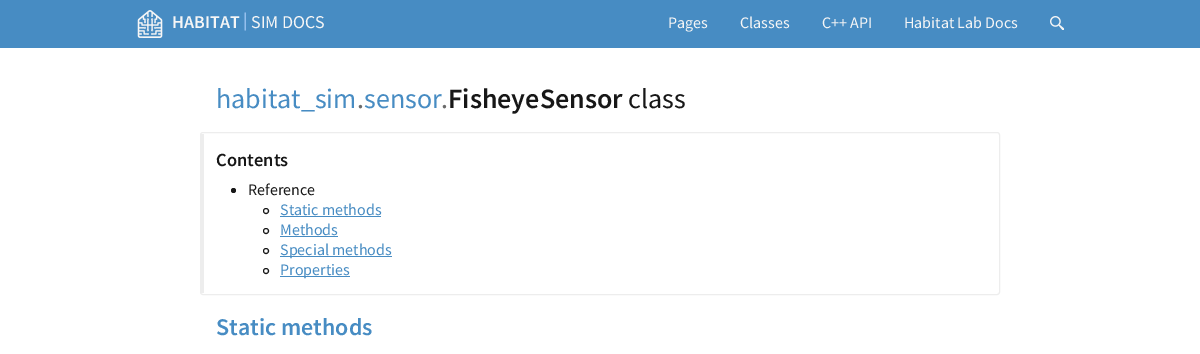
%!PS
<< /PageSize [1200 354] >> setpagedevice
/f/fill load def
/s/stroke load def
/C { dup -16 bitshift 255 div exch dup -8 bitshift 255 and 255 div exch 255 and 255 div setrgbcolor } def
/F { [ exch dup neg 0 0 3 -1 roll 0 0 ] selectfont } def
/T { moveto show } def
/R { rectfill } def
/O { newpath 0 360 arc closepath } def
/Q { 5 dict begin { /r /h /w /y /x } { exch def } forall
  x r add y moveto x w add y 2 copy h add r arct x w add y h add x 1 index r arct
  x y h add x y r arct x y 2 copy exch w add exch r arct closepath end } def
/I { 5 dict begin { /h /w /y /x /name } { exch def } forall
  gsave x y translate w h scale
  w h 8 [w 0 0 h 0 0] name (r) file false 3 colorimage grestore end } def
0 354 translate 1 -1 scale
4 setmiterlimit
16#FFFFFF C
0 0 1200 354 R
16#478CC3 C
0 0 1200 48 R
(1.rgb) 137 10 26 28 I
/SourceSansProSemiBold-SemiBold 18 F
16#F6F6F6 C
(HABITAT) 172 28 T
16#94BFED C
(|) 243 26 T
/SourceSansPro-Regular 18 F
16#F6F6F6 C
(SIM DOCS) 251 28 T
/SourceSansPro-Regular 16 F
(Pages) 668 28 T
(Classes) 740 28 T
(C++ API) 822 28 T
(Habitat Lab Docs) 904 28 T
(2.rgb) 1050 16 14 14 I
/SourceSansPro-Regular 28 F
16#478CC3 C
(habitat_sim) 216 108 T
16#6B6B6B C
(.) 357 108 T
16#478CC3 C
(sensor) 364 108 T
16#6B6B6B C
(.) 441 108 T
/SourceSansProSemiBold-SemiBold 28 F
16#171717 C
(FisheyeSensor) 448 108 T
/SourceSansPro-Regular 28 F
(class) 628 108 T
16#EDEDED C
200.5 132.5 799 162 2.5 Q s
201 134 3 159 R
/SourceSansProSemiBold-SemiBold 18.5 F
16#171717 C
(Contents) 216 166 T
233.5 190.5 2.5 O f
/SourceSansPro-Regular 16 F
(Reference) 248 195 T
266 211 2.5 O s
16#478CC3 C
(Static methods) 280 215 T
280 216 101 1 R
16#171717 C
266 231 2.5 O s
16#478CC3 C
(Methods) 280 235 T
280 236 58 1 R
16#171717 C
266 251 2.5 O s
16#478CC3 C
280 256 112 1 R
(Special methods) 280 255 T
16#171717 C
266 271 2.5 O s
16#478CC3 C
280 276 70 1 R
(Properties) 280 275 T
/SourceSansProSemiBold-SemiBold 24 F
(Static methods) 216 335 T
showpage
